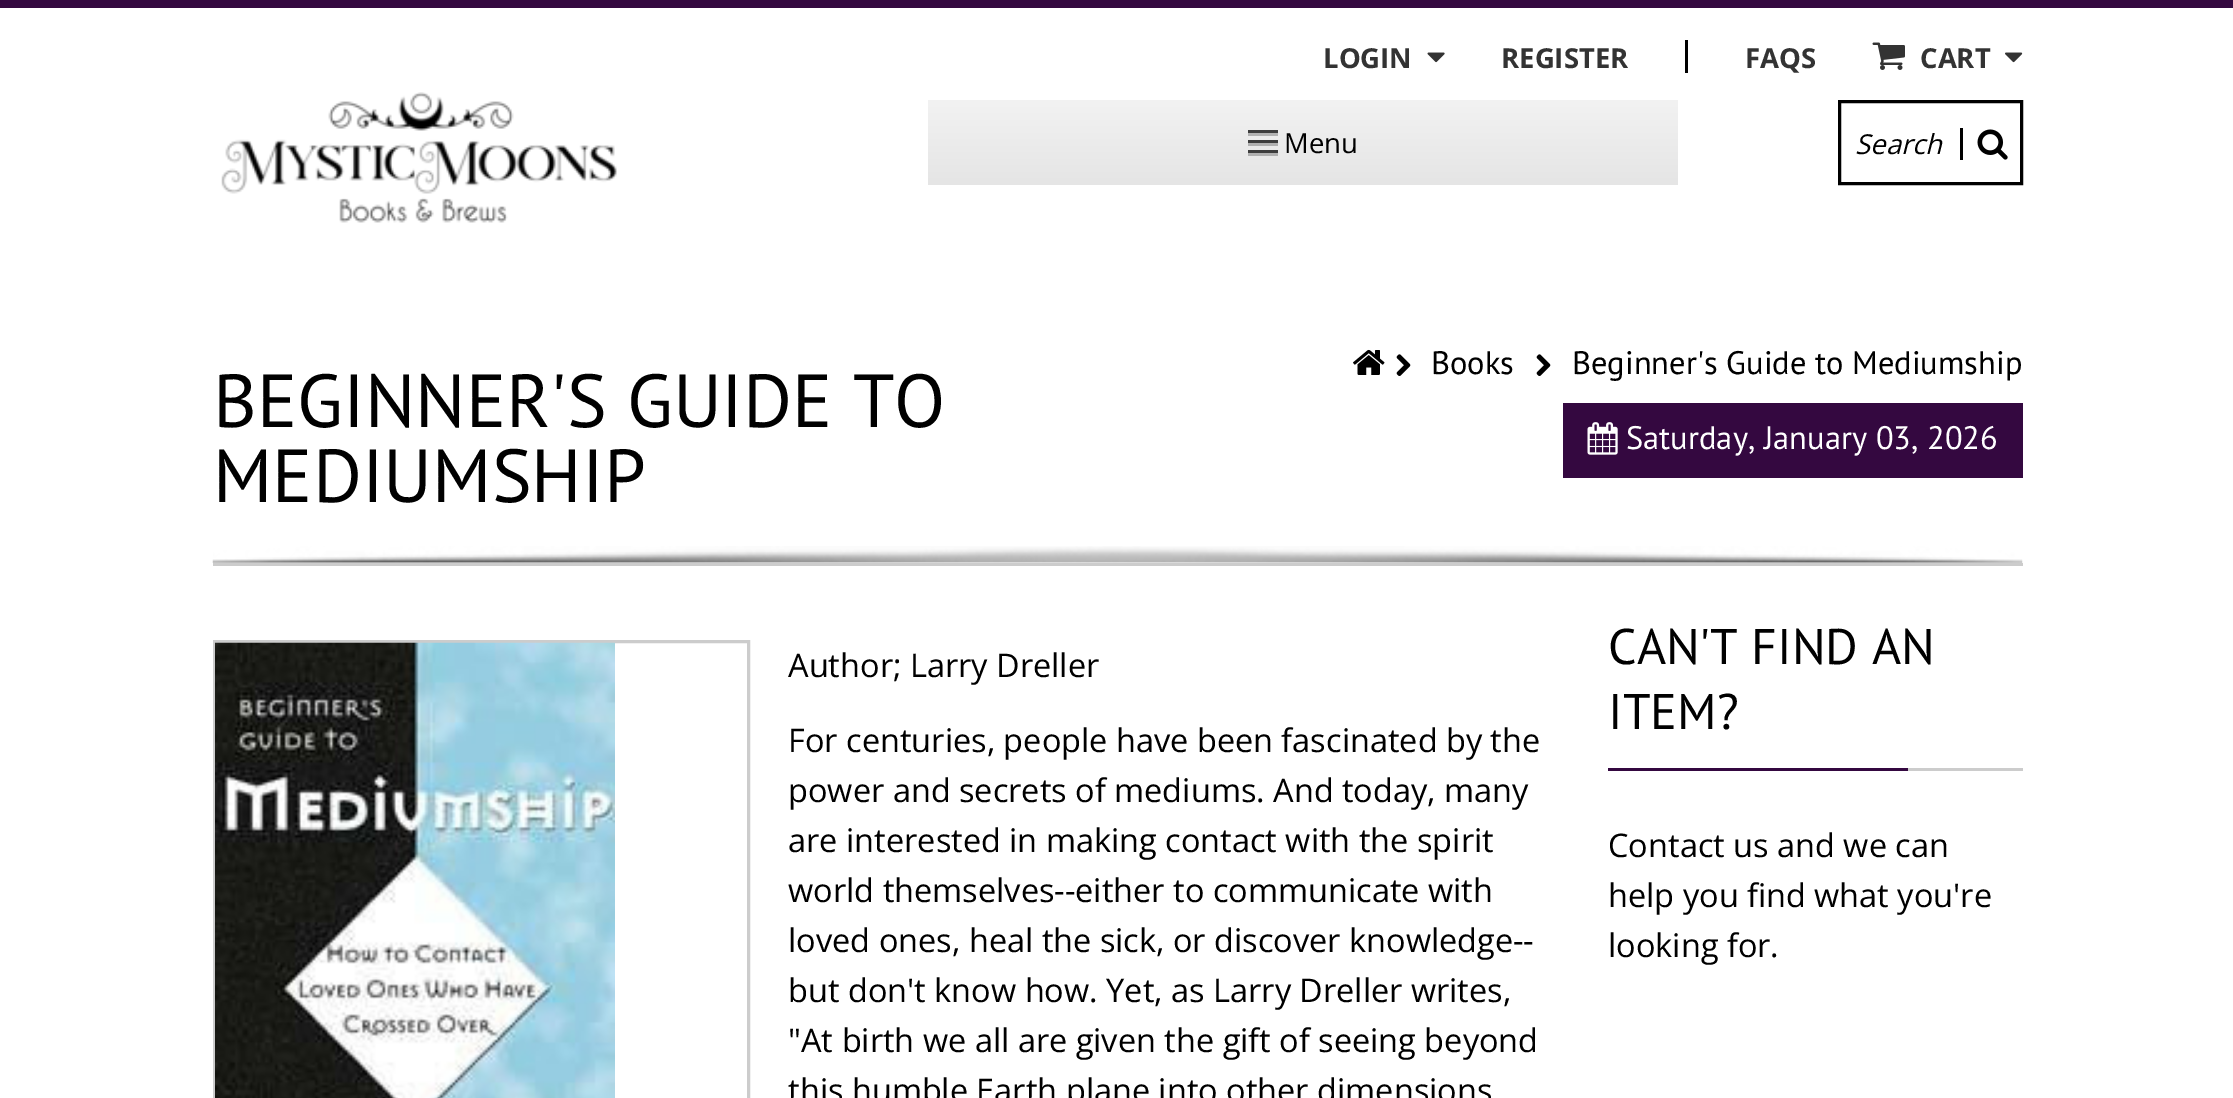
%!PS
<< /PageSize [2233 1098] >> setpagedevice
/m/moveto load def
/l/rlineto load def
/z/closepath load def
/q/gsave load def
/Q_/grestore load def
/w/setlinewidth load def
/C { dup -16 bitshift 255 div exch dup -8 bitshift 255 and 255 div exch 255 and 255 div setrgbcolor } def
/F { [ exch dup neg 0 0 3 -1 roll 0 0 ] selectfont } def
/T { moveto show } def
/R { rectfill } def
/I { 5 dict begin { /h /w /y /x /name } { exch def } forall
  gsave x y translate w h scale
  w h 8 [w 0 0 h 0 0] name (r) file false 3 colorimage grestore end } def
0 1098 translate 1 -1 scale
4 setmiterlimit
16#FFFFFF C
0 0 2233 1098 R
16#340840 C
0 0 2233 8 R
(1.rgb) 221 92 396 131 I
/OpenSans-Bold 27.5 F
16#333333 C
(LOGIN) 1323 68 T
(2.rgb) 1427 52 18 11 I
(REGISTER) 1501 68 T
16#000000 C
1685 40 3 33 R
16#333333 C
(FAQS) 1745 68 T
(3.rgb) 1872 42 33 28 I
(CART) 1920 68 T
(4.rgb) 2005 52 18 11 I
q 928 100 m 750 0 l 0 85 l -750 0 l z clip newpath
<< /ShadingType 2 /ColorSpace /DeviceRGB /Coords [1303 100 1303 185] /Extend [true true] /Function << /FunctionType 2 /Domain [0 1] /C0 [.949 .949 .949] /C1 [.898 .898 .898] /N 1 >> >> shfill Q_
16#B2B2B2 C
1248 133 30 3 R
16#3D3D3D C
1248 130 30 3 R
16#B0B0B0 C
1248 143 30 3 R
16#3D3D3D C
1248 140 30 3 R
16#B0B0B0 C
1248 153 30 3 R
16#3D3D3D C
1248 150 30 3 R
/OpenSans-Regular 27.5 F
16#000000 C
(Menu) 1284 153 T
3 w
1839.5 101.5 182 82 rectstroke
/OpenSans-Italic 27.5 F
(Search) 1855 154 T
1960 128 3 32 R
(5.rgb) 1977 129 31 31 I
16#CCCCCC C
213 563 1810 3 R
/PTSans-Regular 75 F
16#000000 C
(BEGINNER'S GUIDE TO) 213 427 T
(MEDIUMSHIP) 213 502 T
(6.rgb) 1353 349 32 26 I
(7.rgb) 1396 354 15 22 I
/PTSans-Regular 32.5 F
(Books) 1431 374 T
(7.rgb) 1536 354 15 22 I
(Beginner's Guide to Mediumship) 1572 374 T
16#340840 C
1563 403 460 75 R
(8.rgb) 1587 422 31 33 I
16#FFFFFF C
(Saturday, January 03, 2026) 1626 449 T
(9.rgb) 212 546 1811 17 I
16#CCCCCC C
214.5 641.5 534 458 rectstroke
(10.rgb) 215 642 400 456 I
/OpenSans-Regular 32.5 F
16#000000 C
(Author; Larry Dreller) 788 677 T
(For centuries, people have been fascinated by the) 788 752 T
(power and secrets of mediums. And today, many) 788 802 T
(are interested in making contact with the spirit) 788 852 T
(world themselves--either to communicate with) 788 902 T
(loved ones, heal the sick, or discover knowledge--) 788 952 T
(but don't know how. Yet, as Larry Dreller writes,) 788 1002 T
("At birth we all are given the gift of seeing beyond) 788 1052 T
(this humble Earth plane into other dimensions) 788 1102 T
/PTSans-Regular 50 F
(CAN'T FIND AN) 1608 664 T
(ITEM?) 1608 729 T
16#340840 C
1608 768 300 3 R
16#CCCCCC C
1908 768 115 3 R
/OpenSans-Regular 32.5 F
16#000000 C
(Contact us and we can) 1608 857 T
(help you find what you're) 1608 907 T
(looking for.) 1608 957 T
showpage
